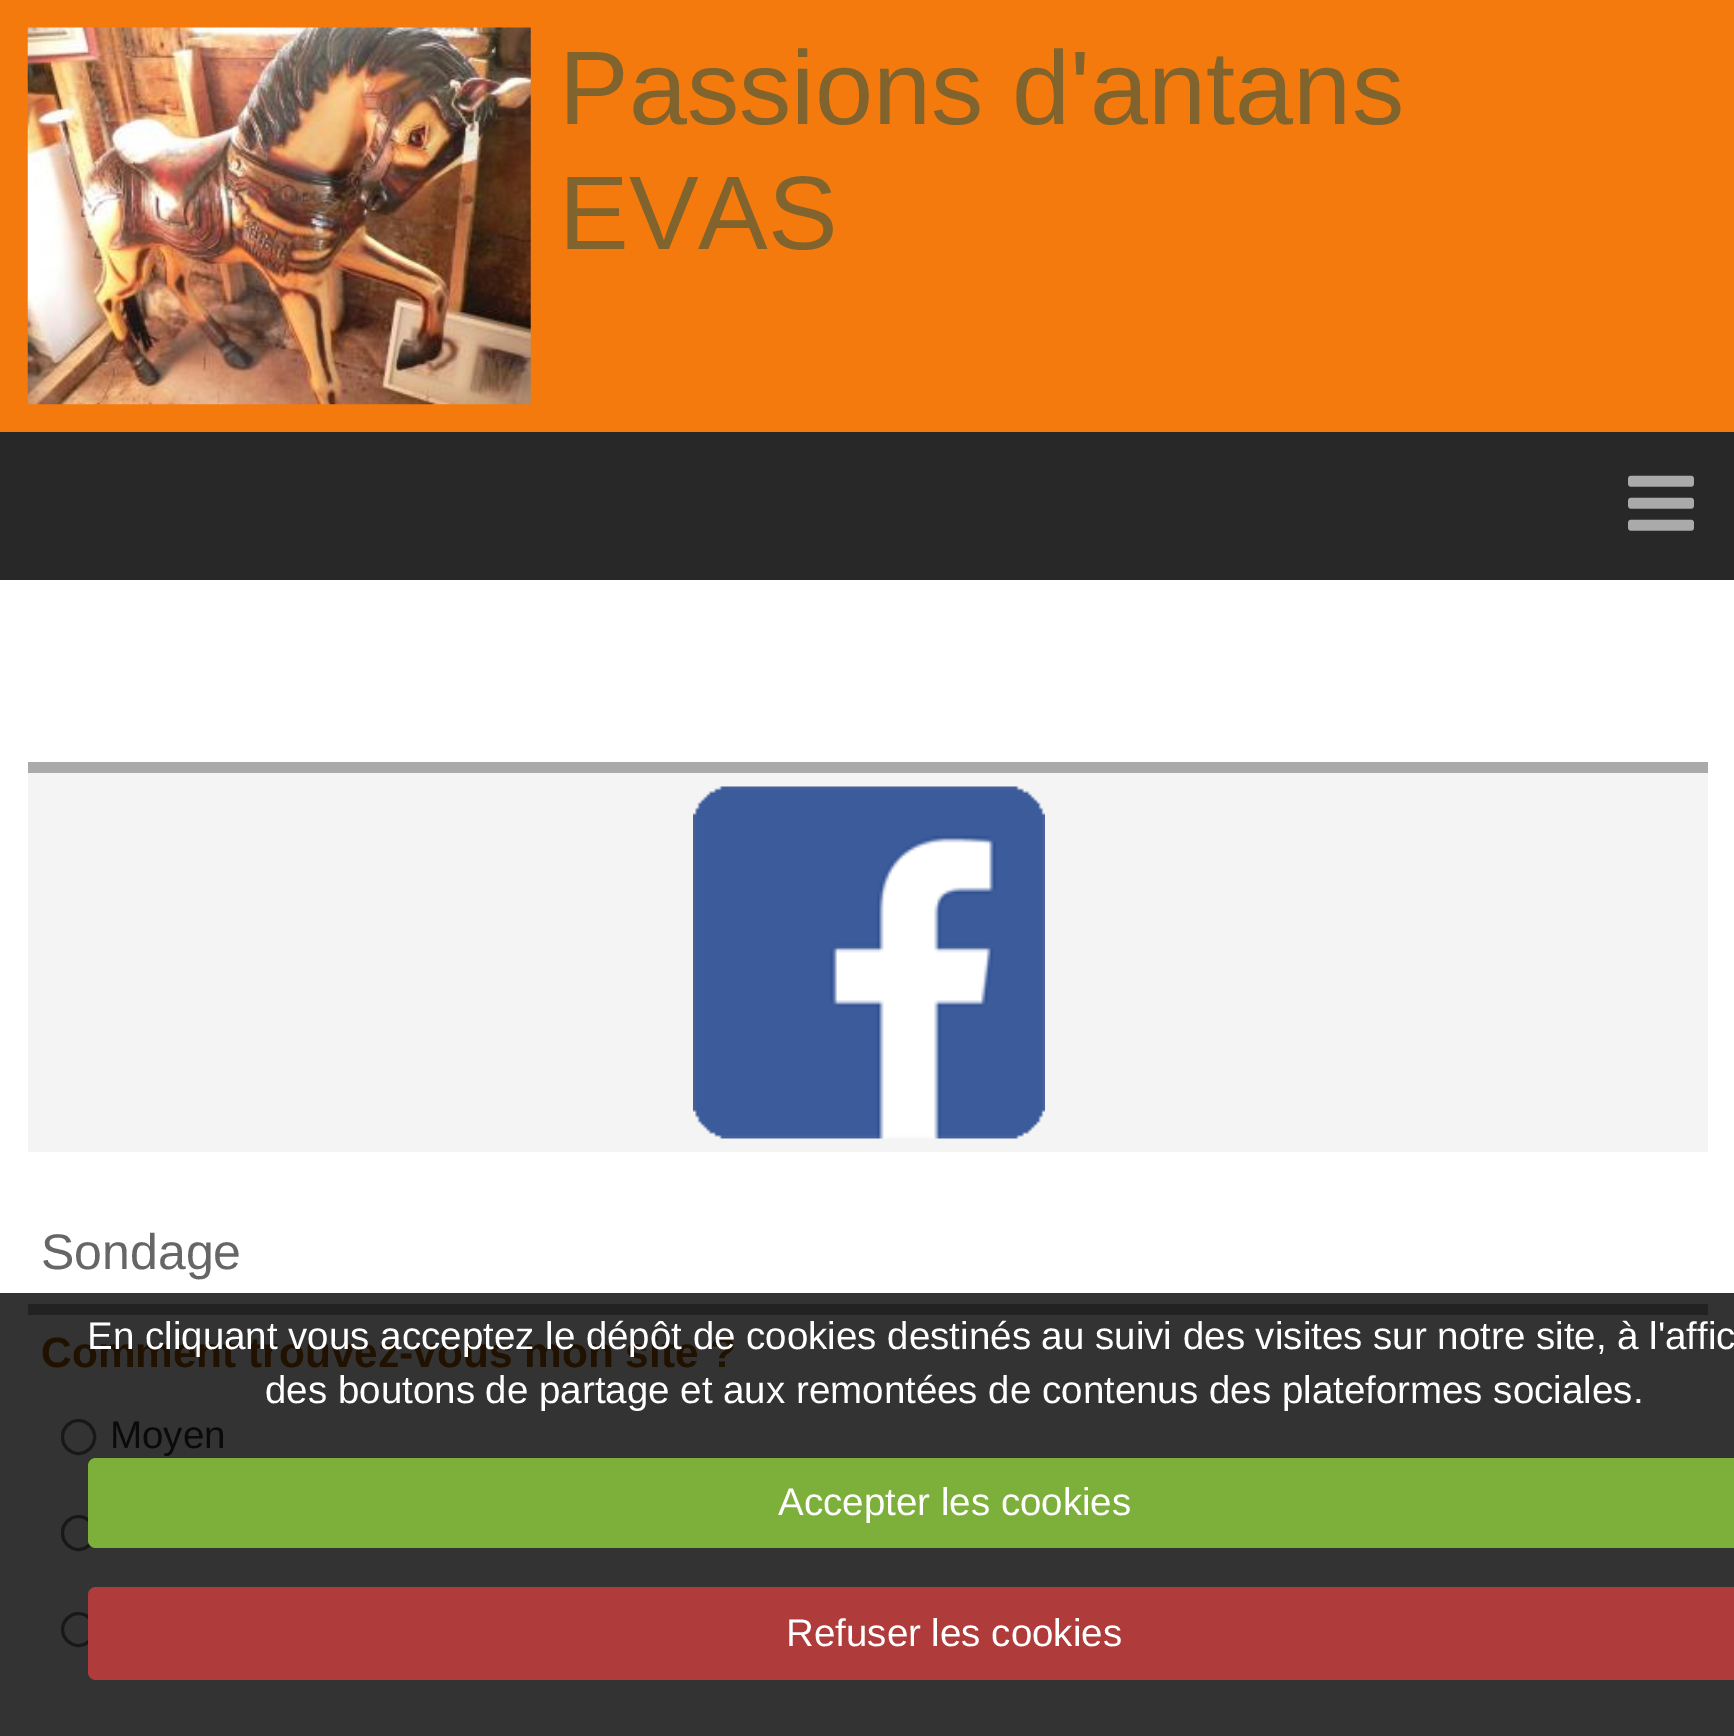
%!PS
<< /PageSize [1734 1736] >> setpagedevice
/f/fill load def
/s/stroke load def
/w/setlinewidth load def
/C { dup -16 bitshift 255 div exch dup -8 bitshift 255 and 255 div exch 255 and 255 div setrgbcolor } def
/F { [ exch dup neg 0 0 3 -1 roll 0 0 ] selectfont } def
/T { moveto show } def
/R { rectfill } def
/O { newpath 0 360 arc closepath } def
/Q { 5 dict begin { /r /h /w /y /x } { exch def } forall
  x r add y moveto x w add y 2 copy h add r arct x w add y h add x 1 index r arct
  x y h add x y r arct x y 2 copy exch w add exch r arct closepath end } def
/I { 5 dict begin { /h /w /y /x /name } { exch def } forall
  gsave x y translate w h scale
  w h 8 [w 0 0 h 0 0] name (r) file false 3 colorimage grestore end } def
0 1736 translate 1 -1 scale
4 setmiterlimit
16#FFFFFF C
0 0 1734 1736 R
16#333333 C
0 1293 1734 443 R
16#F57A0D C
0 0 1734 432 R
(1.rgb) 27 27 504 378 I
/LiberationSans-Regular 104.5 F
16#81642D C
(Passions d'antans) 559 124 T
(EVAS) 559 249 T
16#282828 C
0 432 1734 148 R
(2.rgb) 1628 475 66 56 I
16#AAAAAA C
28 762 1680 11 R
16#F4F4F4 C
28 773 1680 379 R
(3.rgb) 693 786 352 353 I
16#222222 C
28 1304 1680 11 R
/LiberationSans-Regular 50 F
16#666666 C
(Sondage) 41 1269 T
/LiberationSans-Bold 42.4 F
16#201100 C
(Comment trouvez-vous mon site ?) 41 1367 T
16#181818 C
3 w
62.5 1420.5 32 33 16 Q s
/LiberationSans-Regular 38.5 F
16#0A0A0A C
(Moyen) 110 1448 T
16#181818 C
62.5 1516.5 32 33 16 Q s
78.5 1629.5 16 O s
16#FFFFFF C
(En cliquant vous acceptez le dépôt de cookies destinés au suivi des visites sur notre site, à l'affic) 87 1349 T
(des boutons de partage et aux remontées de contenus des plateformes sociales.) 265 1403 T
16#7DAF3B C
88 1458 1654 90 8 Q f
16#FFFFFF C
(Accepter les cookies) 778 1515 T
16#AF3B3B C
88 1587 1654 93 8 Q f
16#FFFFFF C
(Refuser les cookies) 786 1646 T
showpage
